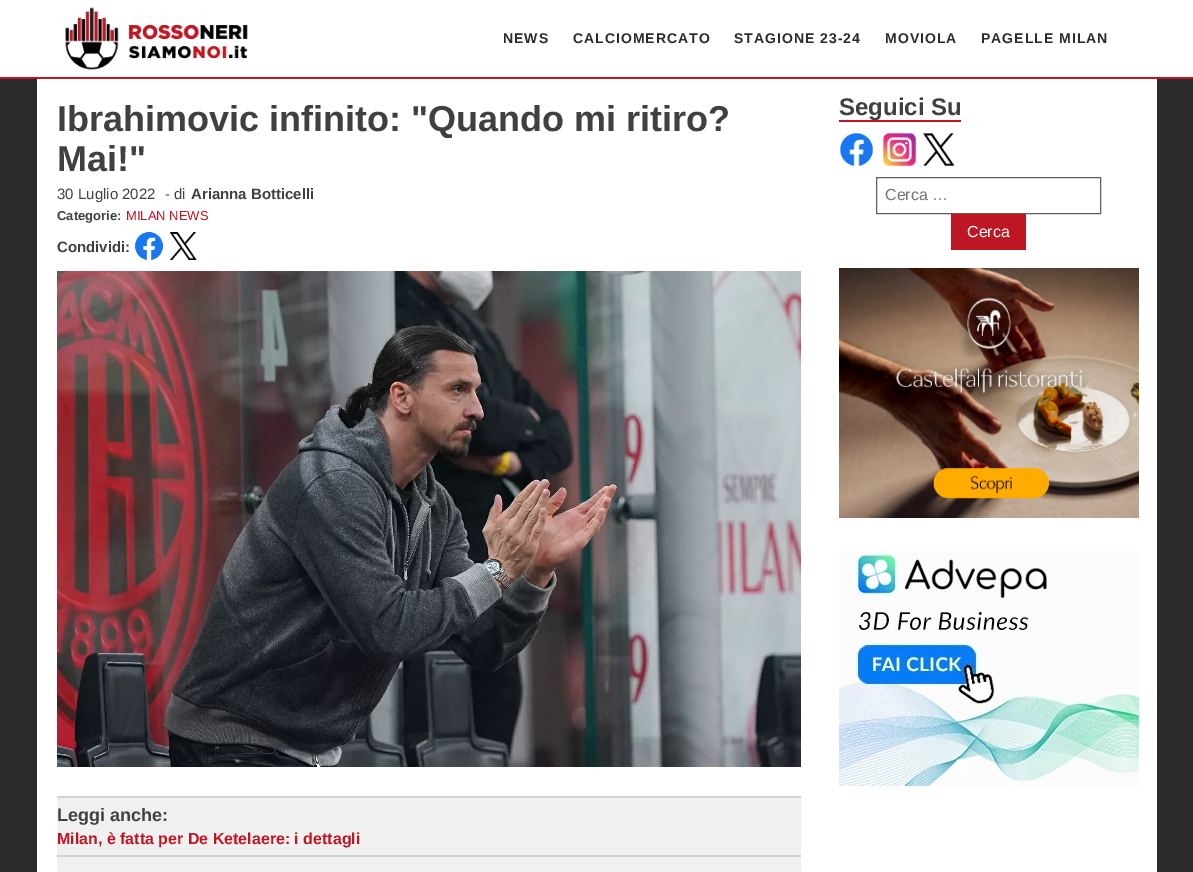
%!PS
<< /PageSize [1193 872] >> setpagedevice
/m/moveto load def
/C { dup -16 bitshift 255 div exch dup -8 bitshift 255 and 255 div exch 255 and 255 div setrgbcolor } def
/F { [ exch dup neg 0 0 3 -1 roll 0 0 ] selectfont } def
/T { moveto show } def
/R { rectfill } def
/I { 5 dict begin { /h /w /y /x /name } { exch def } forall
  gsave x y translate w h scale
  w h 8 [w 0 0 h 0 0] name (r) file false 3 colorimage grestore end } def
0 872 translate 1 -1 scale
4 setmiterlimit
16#FFFFFF C
0 0 1193 872 R
16#BE1622 C
0 77 1193 2 R
(1.rgb) 65 7 183 63 I
/LiberationSans-Bold 14 F
16#2B2C27 C
503 43 m 1 0 (NEWS) ashow
573 43 m 1 0 (CALCIOMERCATO) ashow
734 43 m 1 0 (STAGIONE 23-24) ashow
885 43 m 1 0 (MOVIOLA) ashow
981 43 m 1 0 (PAGELLE MILAN) ashow
16#2A2A2A C
0 79 1193 793 R
16#FFFFFF C
37 79 1120 793 R
/LiberationSans-Bold 36 F
16#404040 C
(Ibrahimovic infinito: "Quando mi ritiro?) 57 131 T
(Mai!") 57 171 T
/LiberationSans-Regular 15 F
(30 Luglio 2022) 57 199 T
(- di) 165 199 T
/LiberationSans-Bold 15 F
(Arianna Botticelli) 191 199 T
/LiberationSans-Bold 13 F
(Categorie:) 57 220 T
/LiberationSans-Regular 13 F
16#BE1622 C
(MILAN NEWS) 126 220 T
/LiberationSans-Bold 15 F
16#404040 C
(Condividi:) 57 252 T
(2.rgb) 135 232 28 28 I
(3.rgb) 170 232 27 28 I
(4.rgb) 57 271 744 496 I
16#F0F0F0 C
57 798 744 74 R
16#D2D2D2 C
57 796 744 2 R
/LiberationSans-Bold 18 F
16#404040 C
(Leggi anche:) 57 821 T
/LiberationSans-Bold 16 F
16#BE1622 C
(Milan, è fatta per De Ketelaere: i dettagli) 57 844 T
16#D2D2D2 C
57 855 744 2 R
16#BE1622 C
839 120 122 2 R
/LiberationSans-Bold 24 F
16#404040 C
(Seguici Su) 839 115 T
(5.rgb) 840 133 33 33 I
(6.rgb) 882 132 35 35 I
(7.rgb) 923 133 32 33 I
16#635E5E C
876.5 177.5 224 36 rectstroke
/LiberationSans-Regular 16 F
16#757575 C
(Cerca …) 885 200 T
16#BE1622 C
951 214 75 36 R
16#FFFFFF C
(Cerca) 967 237 T
(8.rgb) 839 268 300 250 I
(9.rgb) 839 551 300 235 I
showpage
